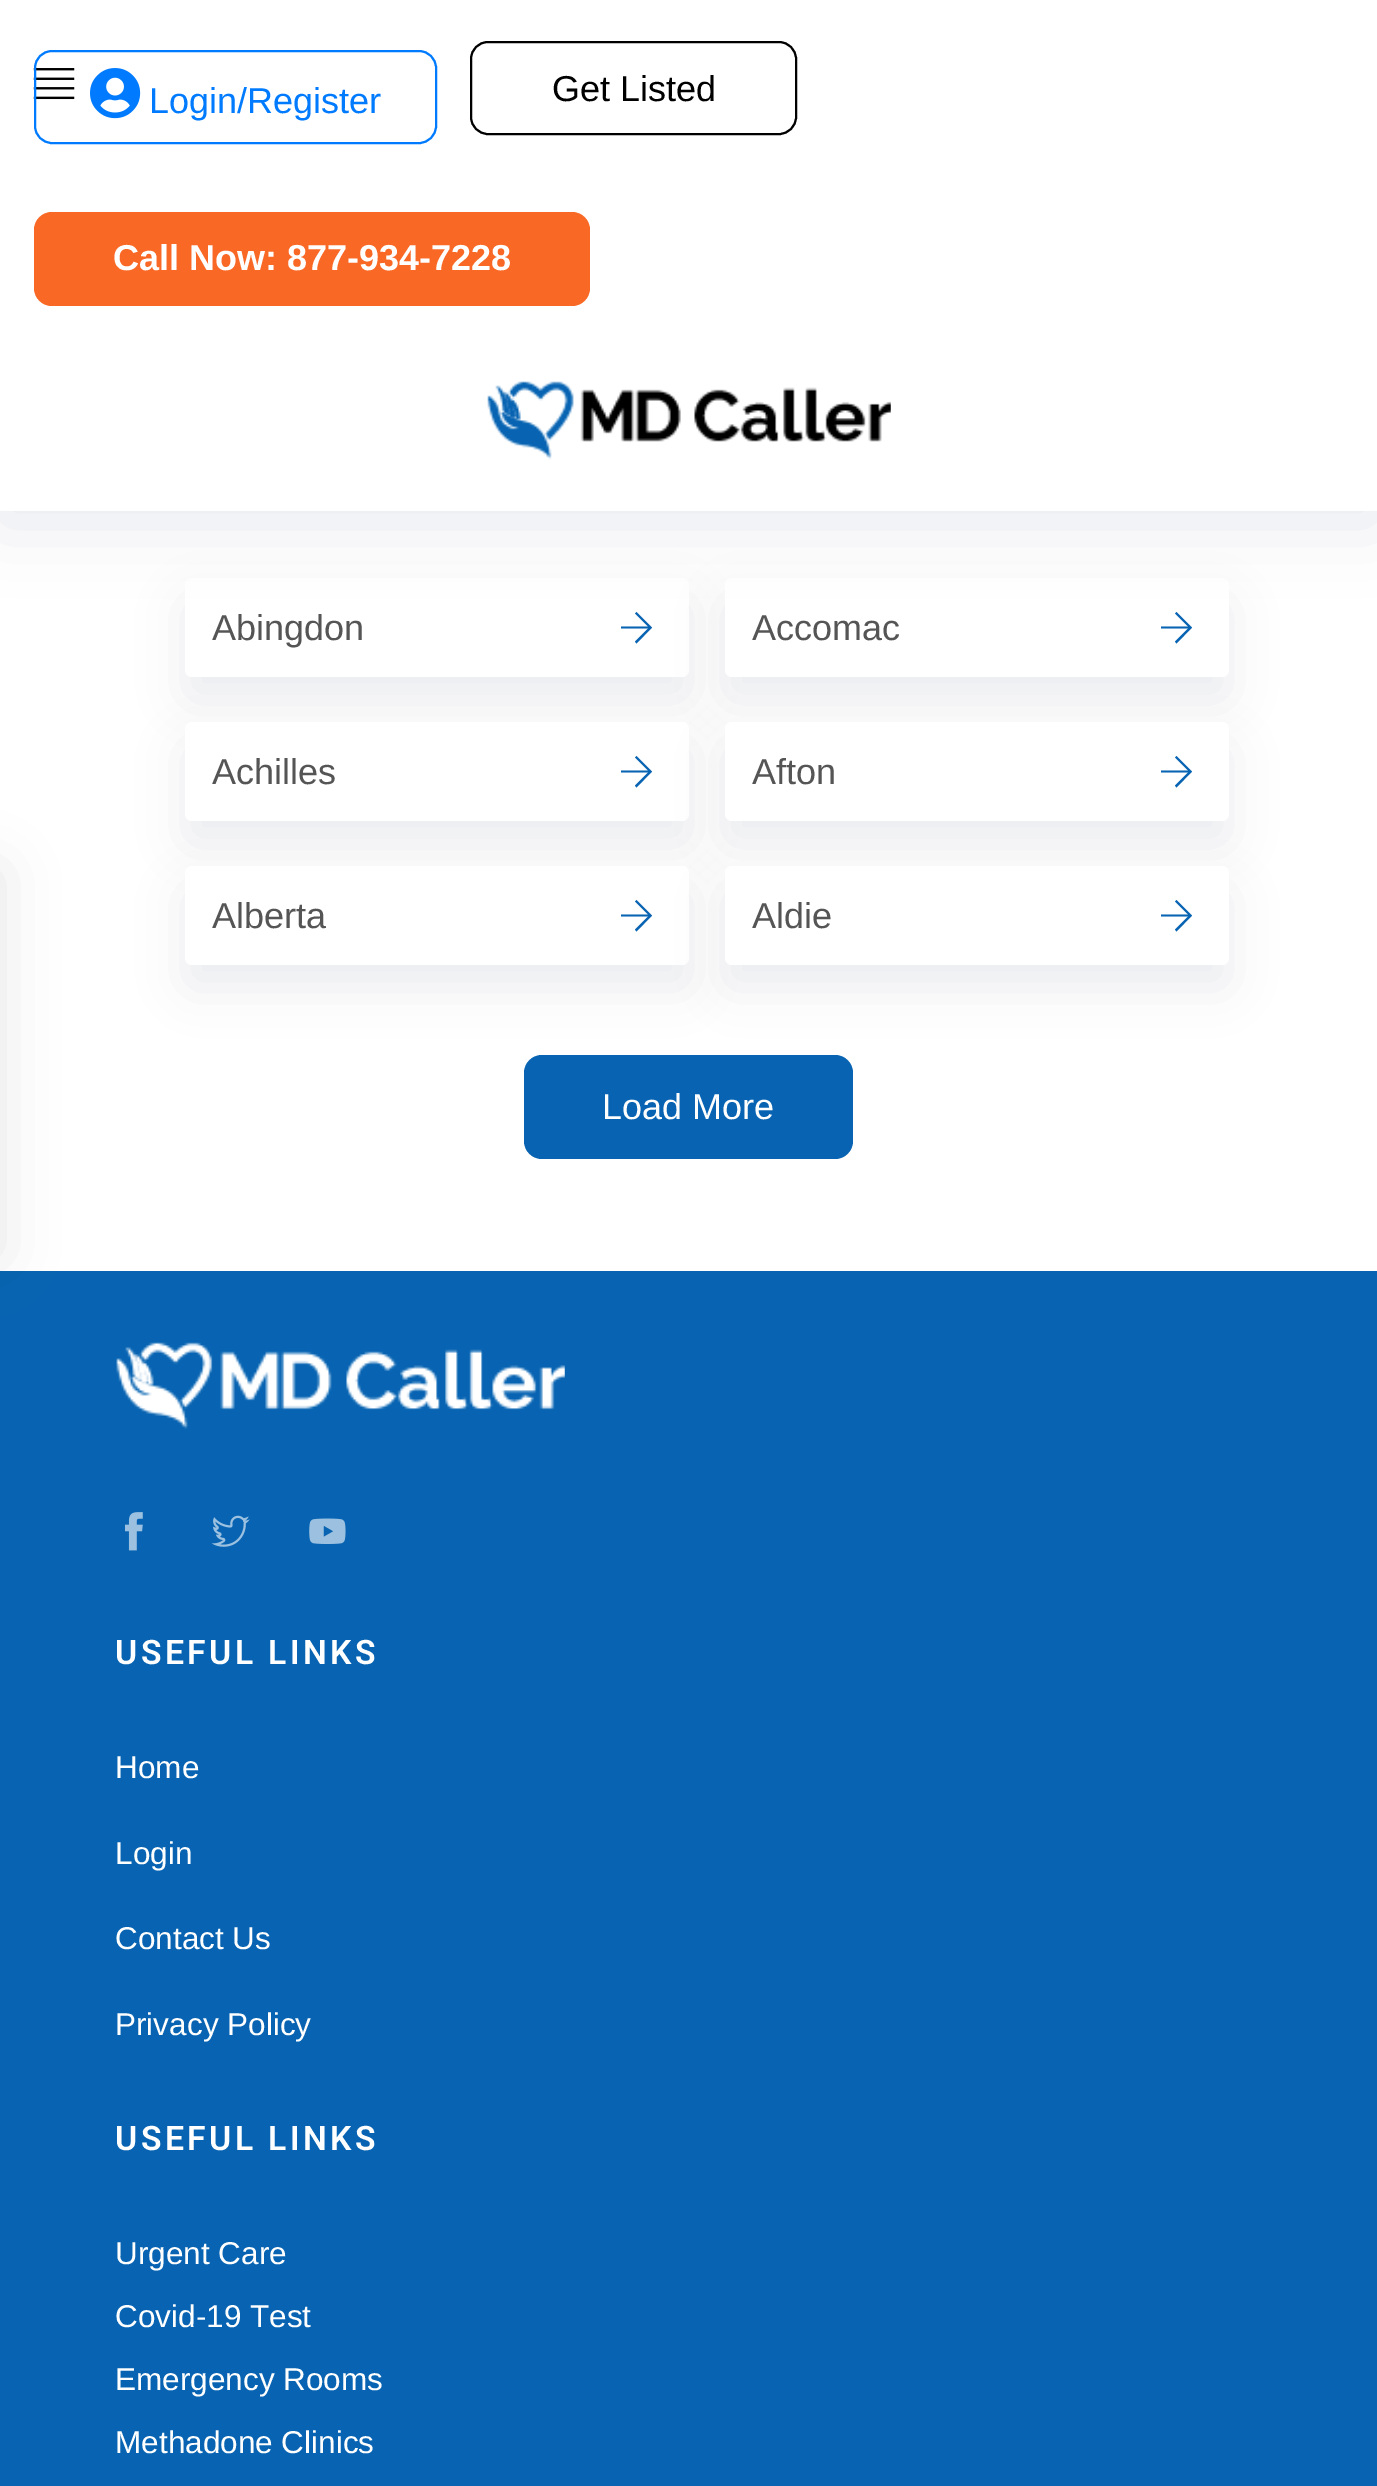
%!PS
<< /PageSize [1377 2486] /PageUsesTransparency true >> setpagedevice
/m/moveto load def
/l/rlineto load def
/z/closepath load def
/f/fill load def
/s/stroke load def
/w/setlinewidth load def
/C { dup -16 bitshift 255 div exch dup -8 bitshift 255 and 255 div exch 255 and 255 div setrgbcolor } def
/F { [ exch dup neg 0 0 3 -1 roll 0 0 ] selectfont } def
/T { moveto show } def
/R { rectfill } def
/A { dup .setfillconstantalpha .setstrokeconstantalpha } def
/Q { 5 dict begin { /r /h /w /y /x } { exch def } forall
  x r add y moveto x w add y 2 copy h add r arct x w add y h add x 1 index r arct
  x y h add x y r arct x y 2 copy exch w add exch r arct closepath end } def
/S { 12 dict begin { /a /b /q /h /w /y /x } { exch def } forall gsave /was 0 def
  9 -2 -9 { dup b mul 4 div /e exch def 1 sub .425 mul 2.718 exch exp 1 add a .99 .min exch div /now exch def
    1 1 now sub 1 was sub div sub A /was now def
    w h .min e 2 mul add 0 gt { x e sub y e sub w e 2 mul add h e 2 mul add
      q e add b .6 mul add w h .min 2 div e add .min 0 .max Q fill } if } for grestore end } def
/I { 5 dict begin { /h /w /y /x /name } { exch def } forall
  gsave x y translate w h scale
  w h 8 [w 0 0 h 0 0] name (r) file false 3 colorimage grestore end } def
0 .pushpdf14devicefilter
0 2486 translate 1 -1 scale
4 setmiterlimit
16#FFFFFF C
0 0 1377 2486 R
16#001654 C
185 601 504 99 7 22.5 .07 S
16#FFFFFF C
185 578 504 99 7 Q f
16#0864B2 C
652 627.5 m -15.5 16 l -1.5 -2 l 13 -13 l -27 0 l 0 -2 l 27 0 l -13 -13 l 1.5 -1.5 l z f
16#001654 C
725 601 504 99 7 22.5 .07 S
16#FFFFFF C
725 578 504 99 7 Q f
16#0864B2 C
1192 627.5 m -15.5 16 l -1.5 -2 l 13 -13 l -27 0 l 0 -2 l 27 0 l -13 -13 l 1.5 -1.5 l z f
16#001654 C
0 11 1377 511 0 34 .1 S
16#FFFFFF C
0 0 1377 511 R
(1.rgb) 33 68 42 32 I
0.2 A
11 w
28.5 43.5 414 106 23.5 Q s
1 A
16#007BFF C
2 w
35 51 401 92 17 Q s
(2.rgb) 90 68 51 51 I
/LiberationSans-Regular 36 F
(Login/Register) 149 113 T
16#000000 C
471 42 325 92 17 Q s
(Get Listed) 552 101 T
16#F96825 C
34 212 556 94 18 Q f
/LiberationSans-Bold 36 F
16#FFFFFF C
(Call Now: 877-934-7228) 113 270 T
(3.rgb) 487 381 404 79 I
16#0864B2 C
0 1271 1377 1215 R
16#000000 C
-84 871 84 385 0 28 .1 S
/LiberationSans-Regular 36 F
16#555555 C
(Abingdon) 212 640 T
(Accomac) 752 640 T
16#001654 C
185 745 504 99 7 22.5 .07 S
16#FFFFFF C
185 722 504 99 7 Q f
16#555555 C
(Achilles) 212 784 T
16#0864B2 C
652 771.5 m -15.5 16 l -1.5 -2 l 13 -13 l -27 0 l 0 -2 l 27 0 l -13 -13 l 1.5 -1.5 l z f
16#001654 C
725 745 504 99 7 22.5 .07 S
16#FFFFFF C
725 722 504 99 7 Q f
16#555555 C
(Afton) 752 784 T
16#0864B2 C
1192 771.5 m -15.5 16 l -1.5 -2 l 13 -13 l -27 0 l 0 -2 l 27 0 l -13 -13 l 1.5 -1.5 l z f
524 1055 329 104 18 Q f
16#001654 C
185 889 504 99 7 22.5 .07 S
16#FFFFFF C
185 866 504 99 7 Q f
16#555555 C
(Alberta) 212 928 T
16#0864B2 C
652 915.5 m -15.5 16 l -1.5 -2 l 13 -13 l -27 0 l 0 -2 l 27 0 l -13 -13 l 1.5 -1.5 l z f
16#001654 C
725 889 504 99 7 22.5 .07 S
16#FFFFFF C
725 866 504 99 7 Q f
16#555555 C
(Aldie) 752 928 T
16#0864B2 C
1192 915.5 m -15.5 16 l -1.5 -2 l 13 -13 l -27 0 l 0 -2 l 27 0 l -13 -13 l 1.5 -1.5 l z f
16#FFFFFF C
(Load More) 602 1119 T
(4.rgb) 116 1342 449 87 I
(5.rgb) 125 1512 18 39 I
(6.rgb) 211 1515 39 32 I
(7.rgb) 309 1518 37 26 I
/Roboto-SemiBold 33.75 F
115 1664 m 3.4 0 (USEFUL LINKS) ashow
/LiberationSans-Regular 31.5 F
(Home) 115 1778 T
(Login) 115 1864 T
(Contact Us) 115 1949 T
(Privacy Policy) 115 2035 T
/Roboto-SemiBold 33.75 F
115 2150 m 3.4 0 (USEFUL LINKS) ashow
/LiberationSans-Regular 31.5 F
(Urgent Care) 115 2264 T
(Covid-19 Test) 115 2327 T
(Emergency Rooms) 115 2390 T
(Methadone Clinics) 115 2453 T
.poppdf14devicefilter showpage
